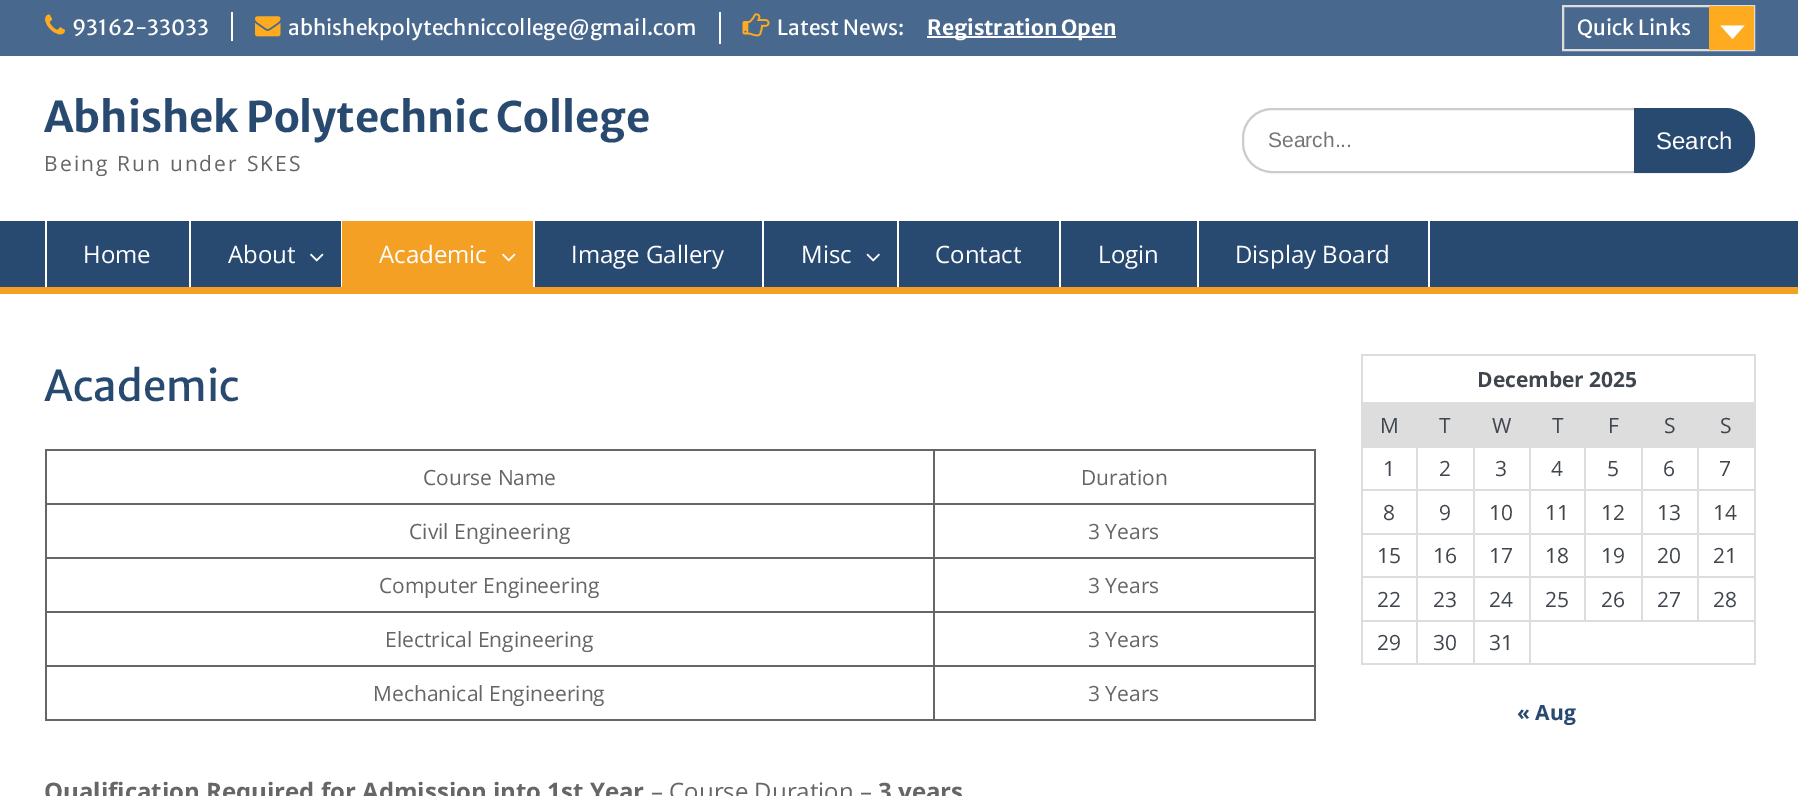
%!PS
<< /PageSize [1798 796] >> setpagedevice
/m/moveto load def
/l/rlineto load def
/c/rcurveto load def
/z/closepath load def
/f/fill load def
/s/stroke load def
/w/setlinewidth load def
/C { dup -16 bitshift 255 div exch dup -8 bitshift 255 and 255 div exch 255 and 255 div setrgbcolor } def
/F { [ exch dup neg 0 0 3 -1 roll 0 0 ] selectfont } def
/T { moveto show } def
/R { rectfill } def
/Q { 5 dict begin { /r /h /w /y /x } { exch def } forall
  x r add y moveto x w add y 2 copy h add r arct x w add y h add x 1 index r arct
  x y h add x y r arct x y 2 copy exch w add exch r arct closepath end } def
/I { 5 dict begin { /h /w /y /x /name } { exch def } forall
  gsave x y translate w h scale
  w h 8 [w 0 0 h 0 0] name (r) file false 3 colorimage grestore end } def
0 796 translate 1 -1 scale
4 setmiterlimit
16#FFFFFF C
0 0 1798 796 R
16#49688E C
0 0 1798 56 R
(1.rgb) 45 14 20 21 I
/MerriweatherSans-Regular 21 F
16#FFFFFF C
(93162-33033) 72 35 T
231 12 2 29 R
(2.rgb) 255 16 26 21 I
(abhishekpolytechniccollege@gmail.com) 288 35 T
719 12 2 32 R
(3.rgb) 742 13 28 24 I
(Latest News:) 777 35 T
927 36 189 2 R
/MerriweatherSans-Bold 21 F
(Registration Open) 927 35 T
16#DDDDDD C
2 w
1563 6 191 44 rectstroke
/MerriweatherSans-Regular 21 F
16#FFFFFF C
(Quick Links) 1577 35 T
16#FFAB1F C
1709 6 45 44 R
16#FFFFFF C
1720.5 25.5 m 24 0 l -12 13.5 l z f
/MerriweatherSans-Bold 42 F
16#294A70 C
(Abhishek Polytechnic College) 44 132 T
/OpenSans-Regular 21 F
16#666666 C
44 171 m 2.1 0 (Being Run under SKES) ashow
16#CCCCCC C
1243 109 511 63 29 Q s
/LiberationSans-Regular 21 F
16#757575 C
(Search...) 1268 147 T
16#294A70 C
1634 108 m 91 0 l 16.5 0 30 13.5 30 30 c 0 5 l 0 16.5 -13.5 30 -30 30 c -91 0 l z f
/LiberationSans-Regular 24 F
16#FFFFFF C
(Search) 1656 149 T
16#294A70 C
0 221 1798 66 R
16#F4A024 C
0 287 1798 7 R
16#FFFFFF C
189 221 2 66 R
45 221 2 66 R
/OpenSans-Regular 24 F
(Home) 83 263 T
341 221 1 66 R
(About) 228 263 T
(4.rgb) 310 253 14 9 I
16#F4A024 C
342 221 191 66 R
16#FFFFFF C
533 221 2 66 R
(Academic) 379 263 T
(5.rgb) 502 253 14 9 I
762 221 2 66 R
(Image Gallery) 571 263 T
897 221 2 66 R
(Misc) 801 263 T
(6.rgb) 866 253 14 9 I
1059 221 2 66 R
(Contact) 935 263 T
1197 221 2 66 R
(Login) 1098 263 T
1428 221 2 66 R
(Display Board) 1235 263 T
/MerriweatherSans-Regular 42 F
16#294A70 C
(Academic) 44 401 T
16#666666 C
933 449 383 2 R
933 503 383 2 R
933 557 383 2 R
933 611 383 2 R
933 665 383 2 R
1314 665 2 55 R
933 719 383 2 R
933 665 2 55 R
45 665 890 2 R
933 611 2 55 R
45 611 890 2 R
933 557 2 55 R
45 557 890 2 R
933 503 2 55 R
45 503 890 2 R
933 449 2 55 R
45 449 890 2 R
45 719 890 2 R
45 665 2 55 R
45 611 2 55 R
45 557 2 55 R
45 503 2 55 R
45 449 2 55 R
/OpenSans-Regular 21 F
(Course Name) 423 485 T
1314 611 2 55 R
1314 557 2 55 R
1314 503 2 55 R
1314 449 2 55 R
(Duration) 1081 485 T
(Civil Engineering) 409 539 T
(3 Years) 1088 539 T
(Computer Engineering) 379 593 T
(3 Years) 1088 593 T
(Electrical Engineering) 385 647 T
(3 Years) 1088 647 T
(Mechanical Engineering) 373 701 T
(3 Years) 1088 701 T
/OpenSans-Bold 24 F
(Qualification Required for Admission into 1st Year) 44 800 T
/OpenSans-Regular 24 F
(– Course Duration –) 651 800 T
/OpenSans-Bold 24 F
(3 years) 878 800 T
16#DDDDDD C
1361 354 394 2 R
1754 354 2 48 R
1361 354 2 48 R
/OpenSans-Bold 21 F
16#40464D C
(December 2025) 1477 387 T
16#DDDDDD C
1363 404 391 42 R
1361 402 394 2 R
1697 446 58 2 R
1697 489 58 2 R
1697 533 58 2 R
1697 576 58 2 R
1529 620 226 2 R
1697 576 2 45 R
1641 576 57 2 R
1697 533 2 45 R
1641 533 57 2 R
1697 489 2 45 R
1641 489 57 2 R
1697 446 2 45 R
1641 446 57 2 R
1641 576 2 45 R
1584 576 59 2 R
1641 533 2 45 R
1584 533 59 2 R
1641 489 2 45 R
1584 489 59 2 R
1641 446 2 45 R
1584 446 59 2 R
1584 576 2 45 R
1529 576 57 2 R
1584 533 2 45 R
1529 533 57 2 R
1584 489 2 45 R
1529 489 57 2 R
1584 446 2 45 R
1529 446 57 2 R
1754 620 2 45 R
1529 663 226 2 R
1529 620 2 45 R
1473 620 57 2 R
1529 576 2 45 R
1473 576 57 2 R
1529 533 2 45 R
1473 533 57 2 R
1529 489 2 45 R
1473 489 57 2 R
1529 446 2 45 R
1473 446 57 2 R
1473 663 57 2 R
1473 620 2 45 R
1416 620 59 2 R
1473 576 2 45 R
1416 576 59 2 R
1473 533 2 45 R
1416 533 59 2 R
1473 489 2 45 R
1416 489 59 2 R
1473 446 2 45 R
1416 446 59 2 R
1416 663 59 2 R
1416 620 2 45 R
1361 620 57 2 R
1416 576 2 45 R
1361 576 57 2 R
1416 533 2 45 R
1361 533 57 2 R
1416 489 2 45 R
1361 489 57 2 R
1416 446 2 45 R
1361 446 57 2 R
1361 663 57 2 R
1361 620 2 45 R
1361 576 2 45 R
1361 533 2 45 R
1361 489 2 45 R
1361 446 2 45 R
1361 402 2 45 R
/OpenSans-Regular 21 F
16#40464D C
(M) 1380 433 T
(T) 1439 433 T
(W) 1492 433 T
(T) 1552 433 T
(F) 1608 433 T
(S) 1664 433 T
16#DDDDDD C
1754 576 2 45 R
1754 533 2 45 R
1754 489 2 45 R
1754 446 2 45 R
1754 402 2 45 R
16#40464D C
(S) 1720 433 T
(1) 1383 476 T
(2) 1439 476 T
(3) 1495 476 T
(4) 1551 476 T
(5) 1607 476 T
(6) 1663 476 T
(7) 1719 476 T
(8) 1383 520 T
(9) 1439 520 T
(10) 1489 520 T
(11) 1545 520 T
(12) 1601 520 T
(13) 1657 520 T
(14) 1713 520 T
(15) 1377 563 T
(16) 1433 563 T
(17) 1489 563 T
(18) 1545 563 T
(19) 1601 563 T
(20) 1657 563 T
(21) 1713 563 T
(22) 1377 607 T
(23) 1433 607 T
(24) 1489 607 T
(25) 1545 607 T
(26) 1601 607 T
(27) 1657 607 T
(28) 1713 607 T
(29) 1377 650 T
(30) 1433 650 T
(31) 1489 650 T
/OpenSans-Bold 21 F
16#294A70 C
(« Aug) 1517 720 T
showpage
